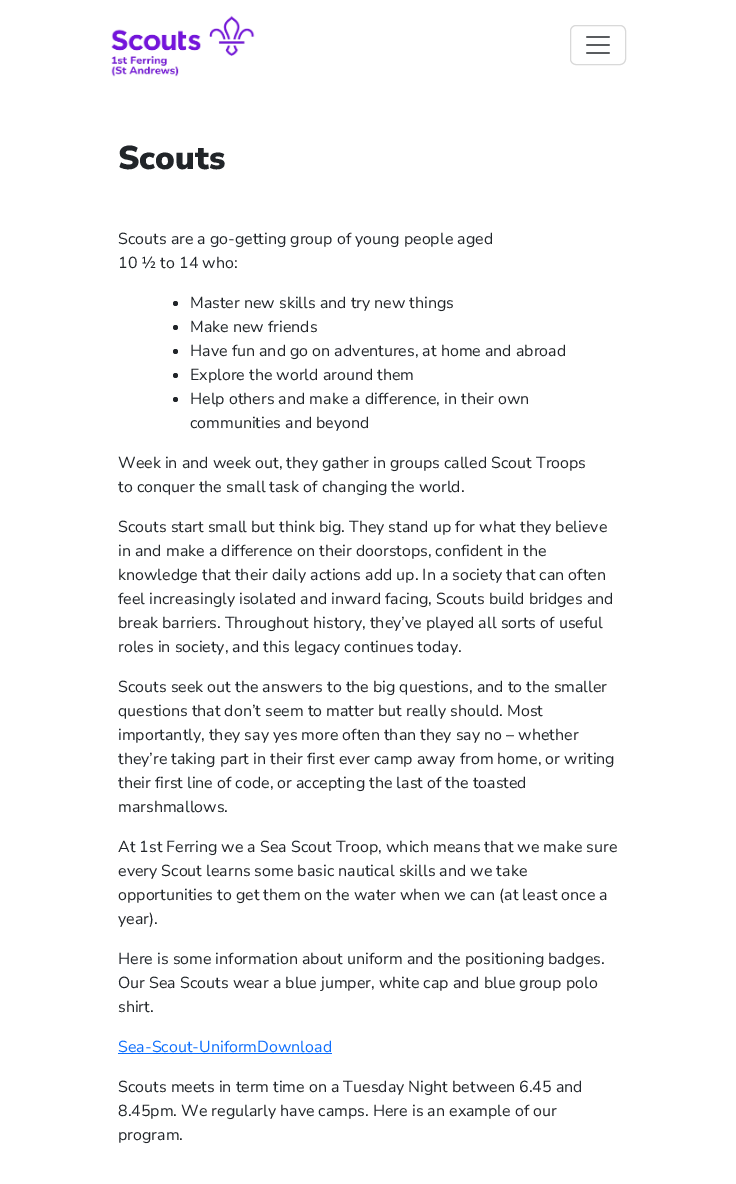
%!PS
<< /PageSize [736 1184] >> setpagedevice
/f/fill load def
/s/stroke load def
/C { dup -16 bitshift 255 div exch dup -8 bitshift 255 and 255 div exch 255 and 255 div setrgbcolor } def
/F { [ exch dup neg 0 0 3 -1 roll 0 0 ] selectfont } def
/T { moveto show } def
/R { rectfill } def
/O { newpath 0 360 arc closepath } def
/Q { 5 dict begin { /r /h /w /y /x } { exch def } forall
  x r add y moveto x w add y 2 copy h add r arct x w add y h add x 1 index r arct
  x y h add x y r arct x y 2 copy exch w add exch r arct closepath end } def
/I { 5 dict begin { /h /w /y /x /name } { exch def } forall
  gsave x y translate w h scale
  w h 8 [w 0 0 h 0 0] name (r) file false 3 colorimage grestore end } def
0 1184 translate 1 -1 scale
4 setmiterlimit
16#FFFFFF C
0 0 736 1184 R
(1.rgb) 111 15 144 62 I
16#D9D9D9 C
570.5 25.5 55 39 5.5 Q s
(2.rgb) 586 36 24 18 I
/NunitoSans-Black 33 F
16#212529 C
(Scouts) 118 169 T
/NunitoSans-Regular 16 F
(Scouts are a go-getting group of young people aged) 118 244 T
(10 ½ to 14 who:) 118 268 T
175.5 303.5 2.5 O f
(Master new skills and try new things) 190 308 T
175.5 327.5 2.5 O f
(Make new friends) 190 332 T
175.5 351.5 2.5 O f
(Have fun and go on adventures, at home and abroad) 190 356 T
175.5 375.5 2.5 O f
(Explore the world around them) 190 380 T
175.5 399.5 2.5 O f
(Help others and make a difference, in their own) 190 404 T
(communities and beyond) 190 428 T
(Week in and week out, they gather in groups called Scout Troops) 118 468 T
(to conquer the small task of changing the world.) 118 492 T
(Scouts start small but think big. They stand up for what they believe) 118 532 T
(in and make a difference on their doorstops, confident in the) 118 556 T
(knowledge that their daily actions add up. In a society that can often) 118 580 T
(feel increasingly isolated and inward facing, Scouts build bridges and) 118 604 T
(break barriers. Throughout history, they’ve played all sorts of useful) 118 628 T
(roles in society, and this legacy continues today.) 118 652 T
(Scouts seek out the answers to the big questions, and to the smaller) 118 692 T
(questions that don’t seem to matter but really should. Most) 118 716 T
(importantly, they say yes more often than they say no – whether) 118 740 T
(they’re taking part in their first ever camp away from home, or writing) 118 764 T
(their first line of code, or accepting the last of the toasted) 118 788 T
(marshmallows.) 118 812 T
(At 1st Ferring we a Sea Scout Troop, which means that we make sure) 118 852 T
(every Scout learns some basic nautical skills and we take) 118 876 T
(opportunities to get them on the water when we can \(at least once a) 118 900 T
(year\).) 118 924 T
(Here is some information about uniform and the positioning badges.) 118 964 T
(Our Sea Scouts wear a blue jumper, white cap and blue group polo) 118 988 T
(shirt.) 118 1012 T
16#0D6EFD C
(Sea-Scout-UniformDownload) 118 1052 T
118 1053 214 1 R
16#212529 C
(Scouts meets in term time on a Tuesday Night between 6.45 and) 118 1092 T
(8.45pm. We regularly have camps. Here is an example of our) 118 1116 T
(program.) 118 1140 T
showpage
